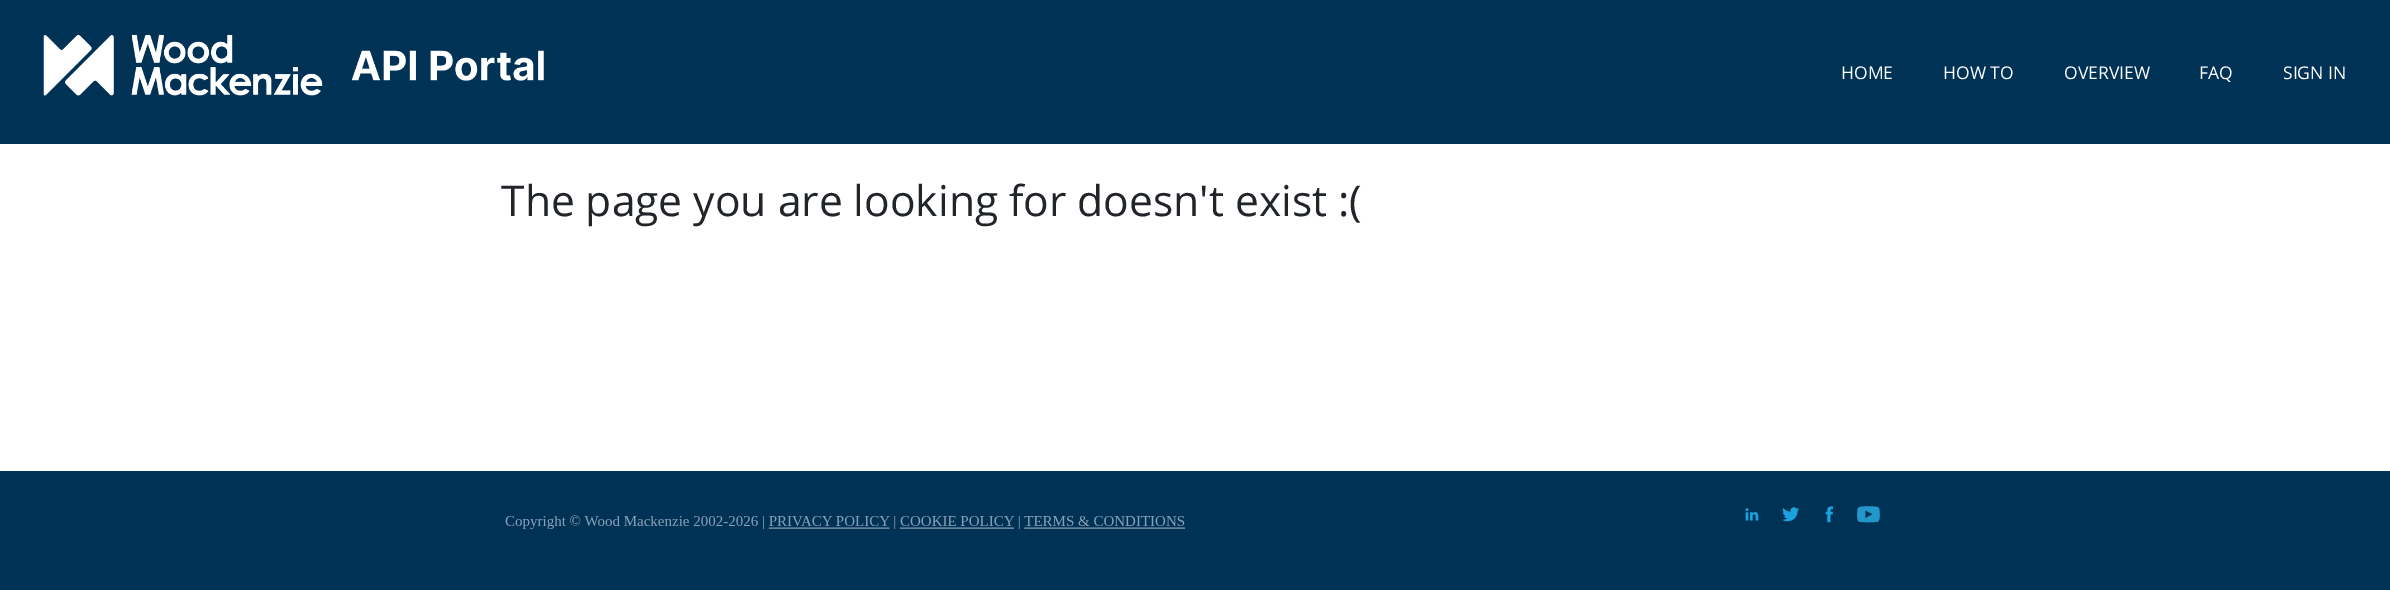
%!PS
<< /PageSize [2390 590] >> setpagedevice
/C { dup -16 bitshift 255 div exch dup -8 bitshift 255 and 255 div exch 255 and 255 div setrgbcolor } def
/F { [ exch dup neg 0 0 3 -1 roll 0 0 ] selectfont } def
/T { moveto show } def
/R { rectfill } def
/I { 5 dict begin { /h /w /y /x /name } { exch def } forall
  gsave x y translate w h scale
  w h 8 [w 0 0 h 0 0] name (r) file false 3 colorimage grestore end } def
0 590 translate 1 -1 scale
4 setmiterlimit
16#FFFFFF C
0 0 2390 590 R
16#003256 C
0 0 2390 144 R
(1.rgb) 43 34 501 62 I
/OpenSans-Regular 17.5 F
16#FFFFFF C
(HOME) 1841 79 T
(HOW TO) 1943 79 T
(OVERVIEW) 2064 79 T
(FAQ) 2199 79 T
(SIGN IN) 2283 79 T
/OpenSans-Regular 42.5 F
16#212529 C
(The page you are looking for doesn't exist :\() 501 216 T
16#003256 C
0 471 2390 119 R
(2.rgb) 505 515 681 14 I
(3.rgb) 1745 506 135 17 I
showpage
